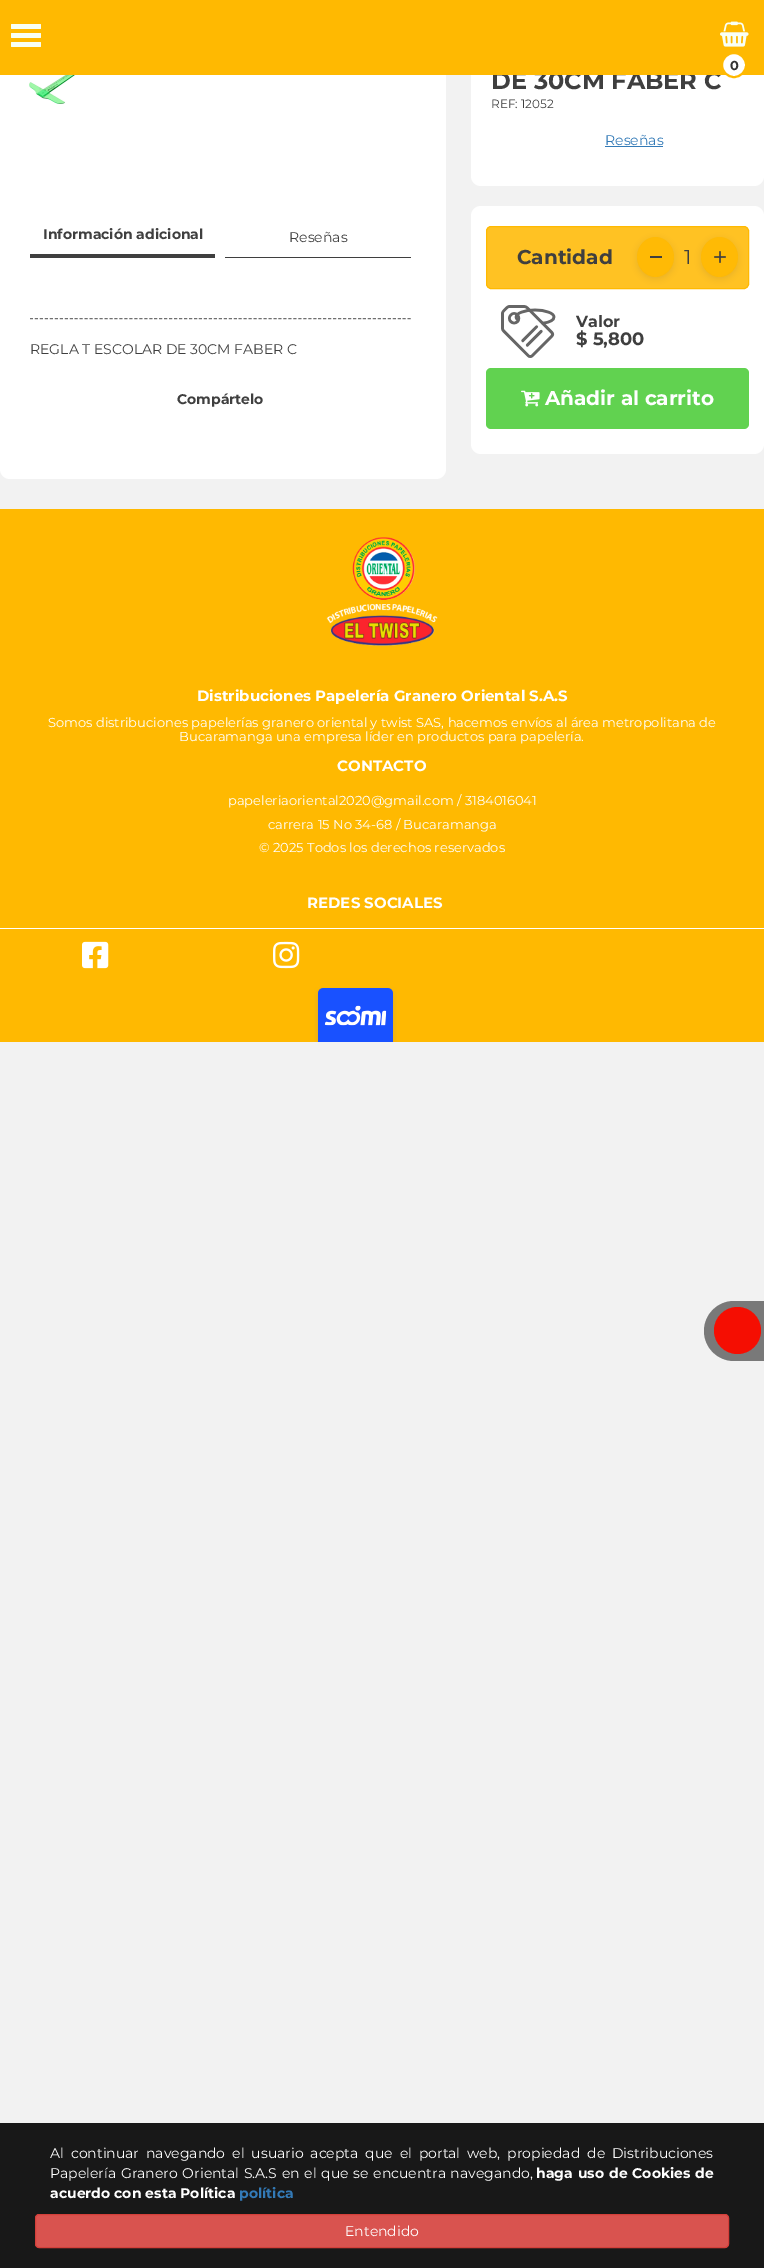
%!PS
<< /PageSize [764 2268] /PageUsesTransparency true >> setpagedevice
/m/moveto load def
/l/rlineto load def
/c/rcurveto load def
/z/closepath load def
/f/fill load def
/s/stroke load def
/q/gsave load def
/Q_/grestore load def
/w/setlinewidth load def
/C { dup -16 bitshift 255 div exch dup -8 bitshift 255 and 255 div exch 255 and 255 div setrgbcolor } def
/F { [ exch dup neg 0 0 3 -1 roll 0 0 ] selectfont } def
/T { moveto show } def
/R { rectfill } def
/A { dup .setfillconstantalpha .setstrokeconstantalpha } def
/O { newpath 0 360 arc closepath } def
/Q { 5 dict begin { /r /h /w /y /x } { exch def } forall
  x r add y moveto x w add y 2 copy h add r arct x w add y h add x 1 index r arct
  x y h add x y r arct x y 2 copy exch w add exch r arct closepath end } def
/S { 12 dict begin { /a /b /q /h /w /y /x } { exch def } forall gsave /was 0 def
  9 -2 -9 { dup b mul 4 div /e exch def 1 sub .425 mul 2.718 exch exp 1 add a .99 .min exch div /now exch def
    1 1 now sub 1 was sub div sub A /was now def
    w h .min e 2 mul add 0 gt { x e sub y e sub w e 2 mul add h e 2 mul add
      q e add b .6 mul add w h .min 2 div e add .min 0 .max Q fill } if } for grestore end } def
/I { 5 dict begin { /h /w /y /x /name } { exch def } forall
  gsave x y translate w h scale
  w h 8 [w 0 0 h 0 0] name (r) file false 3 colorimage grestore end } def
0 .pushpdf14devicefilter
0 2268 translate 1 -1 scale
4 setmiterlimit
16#F2F2F2 C
0 0 764 2268 R
16#FFFFFF C
0 25 446 454 10 Q f
471 25 293 161 10 Q f
/Montserrat-Bold 24 F
16#3F3F3F C
(DE 30CM FABER C) 491 89 T
16#FFB901 C
0 0 764 75 R
16#F8FFF6 C
11 24 30 5 1 Q f
11 33 30 5 1 Q f
11 42 30 5 1 Q f
(1.rgb) 720 21 29 26 I
16#FFFFFF C
734 65 12 O q f Q_
16#FFB901 C
2 w
s
/Montserrat-Bold 13 F
16#333333 C
(0) 730 70 T
(2.rgb) 29 75 54 29 I
16#3F3F3F C
30 254 185 4 R
/Montserrat-Bold 14 F
(Información adicional) 43 239 T
225 257 186 1 R
/Montserrat-Regular 14 F
(Reseñas) 289 242 T
16#707070 C
1 w
[3 1.97] 0 setdash
30 318.5 m 381 0 l s
16#3F3F3F C
(REGLA T ESCOLAR DE 30CM FABER C) 30 354 T
/Montserrat-Bold 14 F
(Compártelo) 177 404 T
/Montserrat-Regular 12 F
(REF: 12052) 491 108 T
/Montserrat-Regular 14 F
16#337AB7 C
(Reseñas) 605 145 T
605 146 58 1 R
16#FFFFFF C
471 206 293 248 10 Q f
16#FFC223 C
486.5 226.5 262 62 4.5 Q q f Q_
16#FFB901 C
[] 0 setdash
s
/Montserrat-Bold 20 F
16#3F3F3F C
(Cantidad) 517 264 T
q
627 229 m 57 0 l 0 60 l -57 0 l z 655.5 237 m 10 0 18.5 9 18.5 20 c 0 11 -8.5 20 -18.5 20 c -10 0 -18.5 -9 -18.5 -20 c 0 -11 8.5 -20 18.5 -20 c z eoclip newpath
16#32325D C
637 239 37 40 18.5 3 .1 S
Q_
0.87 A
16#FFB901 C
655.5 237 m 10 0 18.5 9 18.5 20 c 0 11 -8.5 20 -18.5 20 c -10 0 -18.5 -9 -18.5 -20 c 0 -11 8.5 -20 18.5 -20 c z f
1 A
16#3F3F3F C
650 256 12 2 R
/Montserrat-Regular 20 F
(1) 684 264 T
q
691 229 m 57 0 l 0 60 l -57 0 l z 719.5 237 m 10 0 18.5 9 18.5 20 c 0 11 -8.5 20 -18.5 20 c -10 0 -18.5 -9 -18.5 -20 c 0 -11 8.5 -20 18.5 -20 c z eoclip newpath
16#32325D C
701 239 37 40 18.5 3 .1 S
Q_
0.87 A
16#FFB901 C
719.5 237 m 10 0 18.5 9 18.5 20 c 0 11 -8.5 20 -18.5 20 c -10 0 -18.5 -9 -18.5 -20 c 0 -11 8.5 -20 18.5 -20 c z f
1 A
(3.rgb) 714 251 12 12 I
(4.rgb) 501 305 55 53 I
/Montserrat-Bold 16 F
16#3F3F3F C
(Valor) 576 327 T
/Montserrat-Bold 18 F
($ 5,800) 576 345 T
16#61D250 C
486 368 263 61 5 Q f
(5.rgb) 521 390 19 17 I
/Montserrat-Bold 20 F
16#FFFFFF C
(Añadir al carrito) 545 405 T
16#FFB901 C
0 509 764 533 R
(6.rgb) 326 537 112 109 I
/Montserrat-Bold 15 F
16#FFFFFF C
(Distribuciones Papelería Granero Oriental S.A.S) 197 701 T
/Montserrat-Regular 13 F
(Somos distribuciones papelerías granero oriental y twist SAS, hacemos envíos al área metropolitana de) 48 727 T
(Bucaramanga una empresa líder en productos para papelería.) 179 741 T
/Montserrat-Bold 15 F
(CONTACTO) 337 771 T
/Montserrat-Regular 13 F
(papeleriaoriental2020@gmail.com / 3184016041) 228 805 T
(carrera 15 No 34-68 / Bucaramanga) 268 829 T
(© 2025 Todos los derechos reservados) 259 852 T
0 928 764 1 R
/Montserrat-Bold 15 F
(REDES SOCIALES) 307 908 T
(7.rgb) 82 941 27 28 I
(8.rgb) 273 941 27 28 I
(9.rgb) 314 987 83 55 I
16#797979 C
734 1301 m 30 0 l 0 60 l -30 0 l -16.5 0 -30 -13.5 -30 -30 c 0 -16.5 13.5 -30 30 -30 c z f
16#F50E02 C
737.5 1330.5 23.5 O f
16#181818 C
0 2123 764 145 R
/Montserrat-Regular 14 F
16#FFFFFF C
50 2158 m 3.25 0 32 (Al continuar navegando el usuario acepta que el portal web, propiedad de Distribuciones) widthshow
50 2178 m 1 0 32 (Papelería Granero Oriental S.A.S en el que se encuentra navegando,) widthshow
/Montserrat-Bold 14 F
536 2178 m 1 0 32 (haga uso de Cookies de) widthshow
(acuerdo con esta Política) 50 2198 T
16#337AB7 C
(política) 239 2198 T
16#D9534F C
35.5 2214.5 693 33 3.5 Q q f Q_
16#D43F3A C
s
/Montserrat-Regular 14 F
16#FFFFFF C
(Entendido) 345 2236 T
.poppdf14devicefilter showpage
